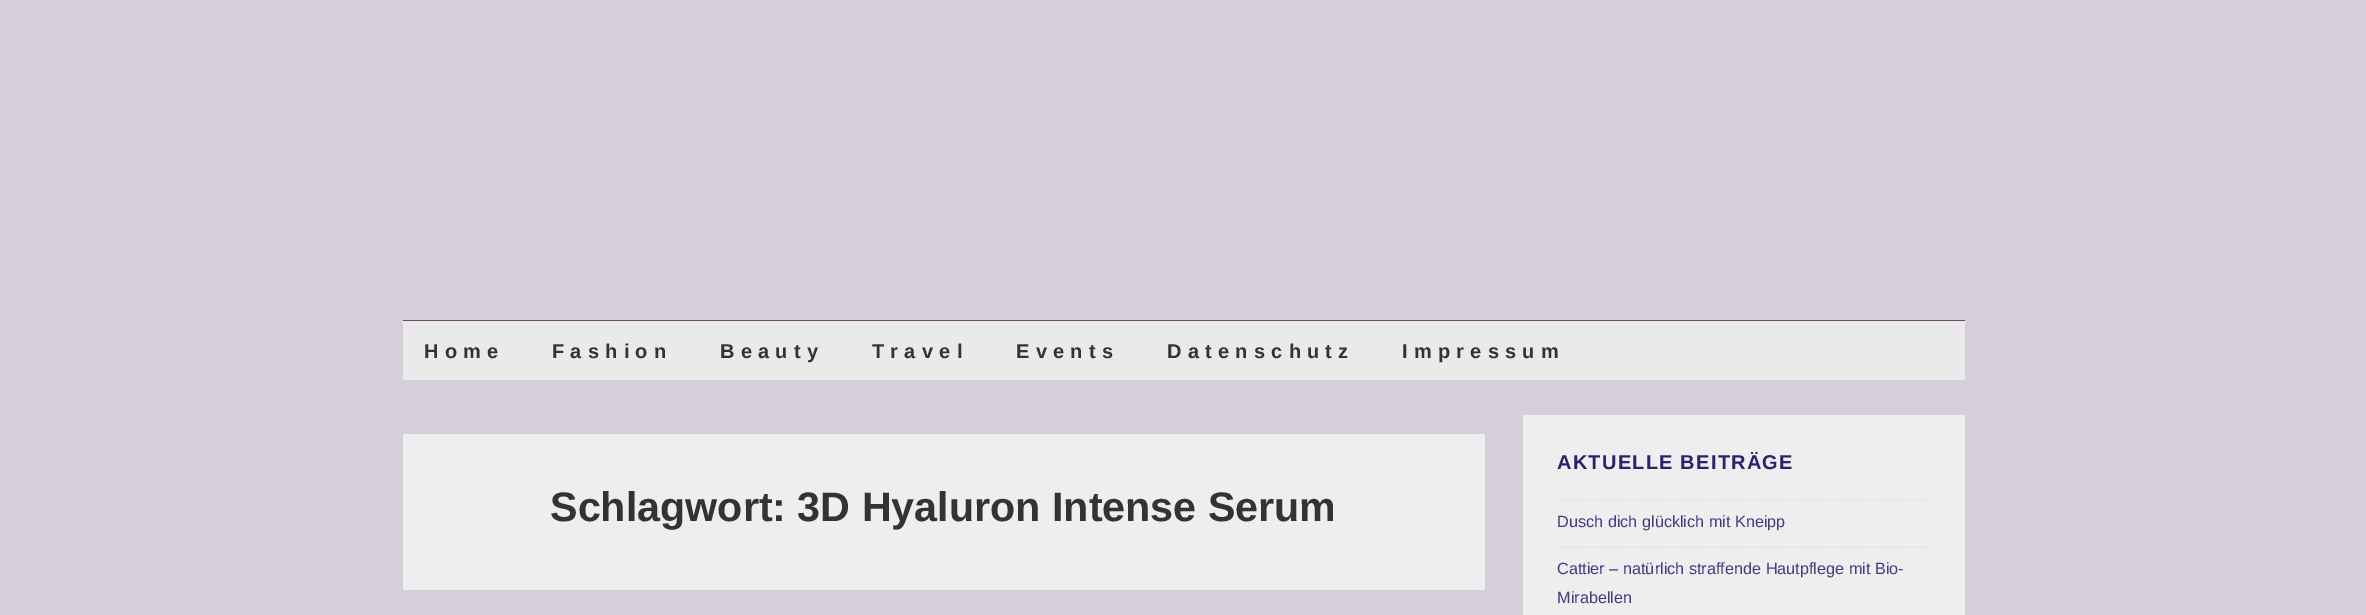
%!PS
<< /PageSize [2366 615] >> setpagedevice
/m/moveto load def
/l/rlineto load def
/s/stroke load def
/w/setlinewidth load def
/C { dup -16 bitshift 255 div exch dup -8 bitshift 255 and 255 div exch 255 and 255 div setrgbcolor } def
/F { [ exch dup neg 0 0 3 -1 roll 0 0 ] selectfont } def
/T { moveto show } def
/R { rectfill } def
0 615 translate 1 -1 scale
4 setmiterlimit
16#D7CEDB C
0 0 2366 615 R
16#EAEAEA C
403 321 1562 59 R
16#714871 C
403 320 1562 1 R
/LiberationSans-Bold 20 F
16#333333 C
424 358 m 6.25 0 (Home) ashow
552 358 m 6.25 0 (Fashion) ashow
720 358 m 6.25 0 (Beauty) ashow
872 358 m 6.25 0 (Travel) ashow
1016 358 m 6.25 0 (Events) ashow
1167 358 m 6.25 0 (Datenschutz) ashow
1402 358 m 6.25 0 (Impressum) ashow
16#EEEEEE C
403 434 1082 156 R
/LiberationSans-Bold 41.25 F
16#333333 C
(Schlagwort: 3D Hyaluron Intense Serum) 550 521 T
16#EEEEEE C
1523 415 442 200 R
/LiberationSans-Bold 20 F
16#2B226B C
1557 469 m 1.25 0 (AKTUELLE BEITRÄGE) ashow
16#E0E0E0 C
1.2 w
[1.25 1.25] 0 setdash
1557.5 499.5 m 372.5 0 l s
/LiberationSans-Regular 16.25 F
16#443A82 C
(Dusch dich glücklich mit Kneipp) 1557 527 T
16#E0E0E0 C
1557.5 547 m 372.5 0 l s
16#443A82 C
(Cattier – natürlich straffende Hautpflege mit Bio-) 1557 574 T
(Mirabellen) 1557 603 T
showpage
